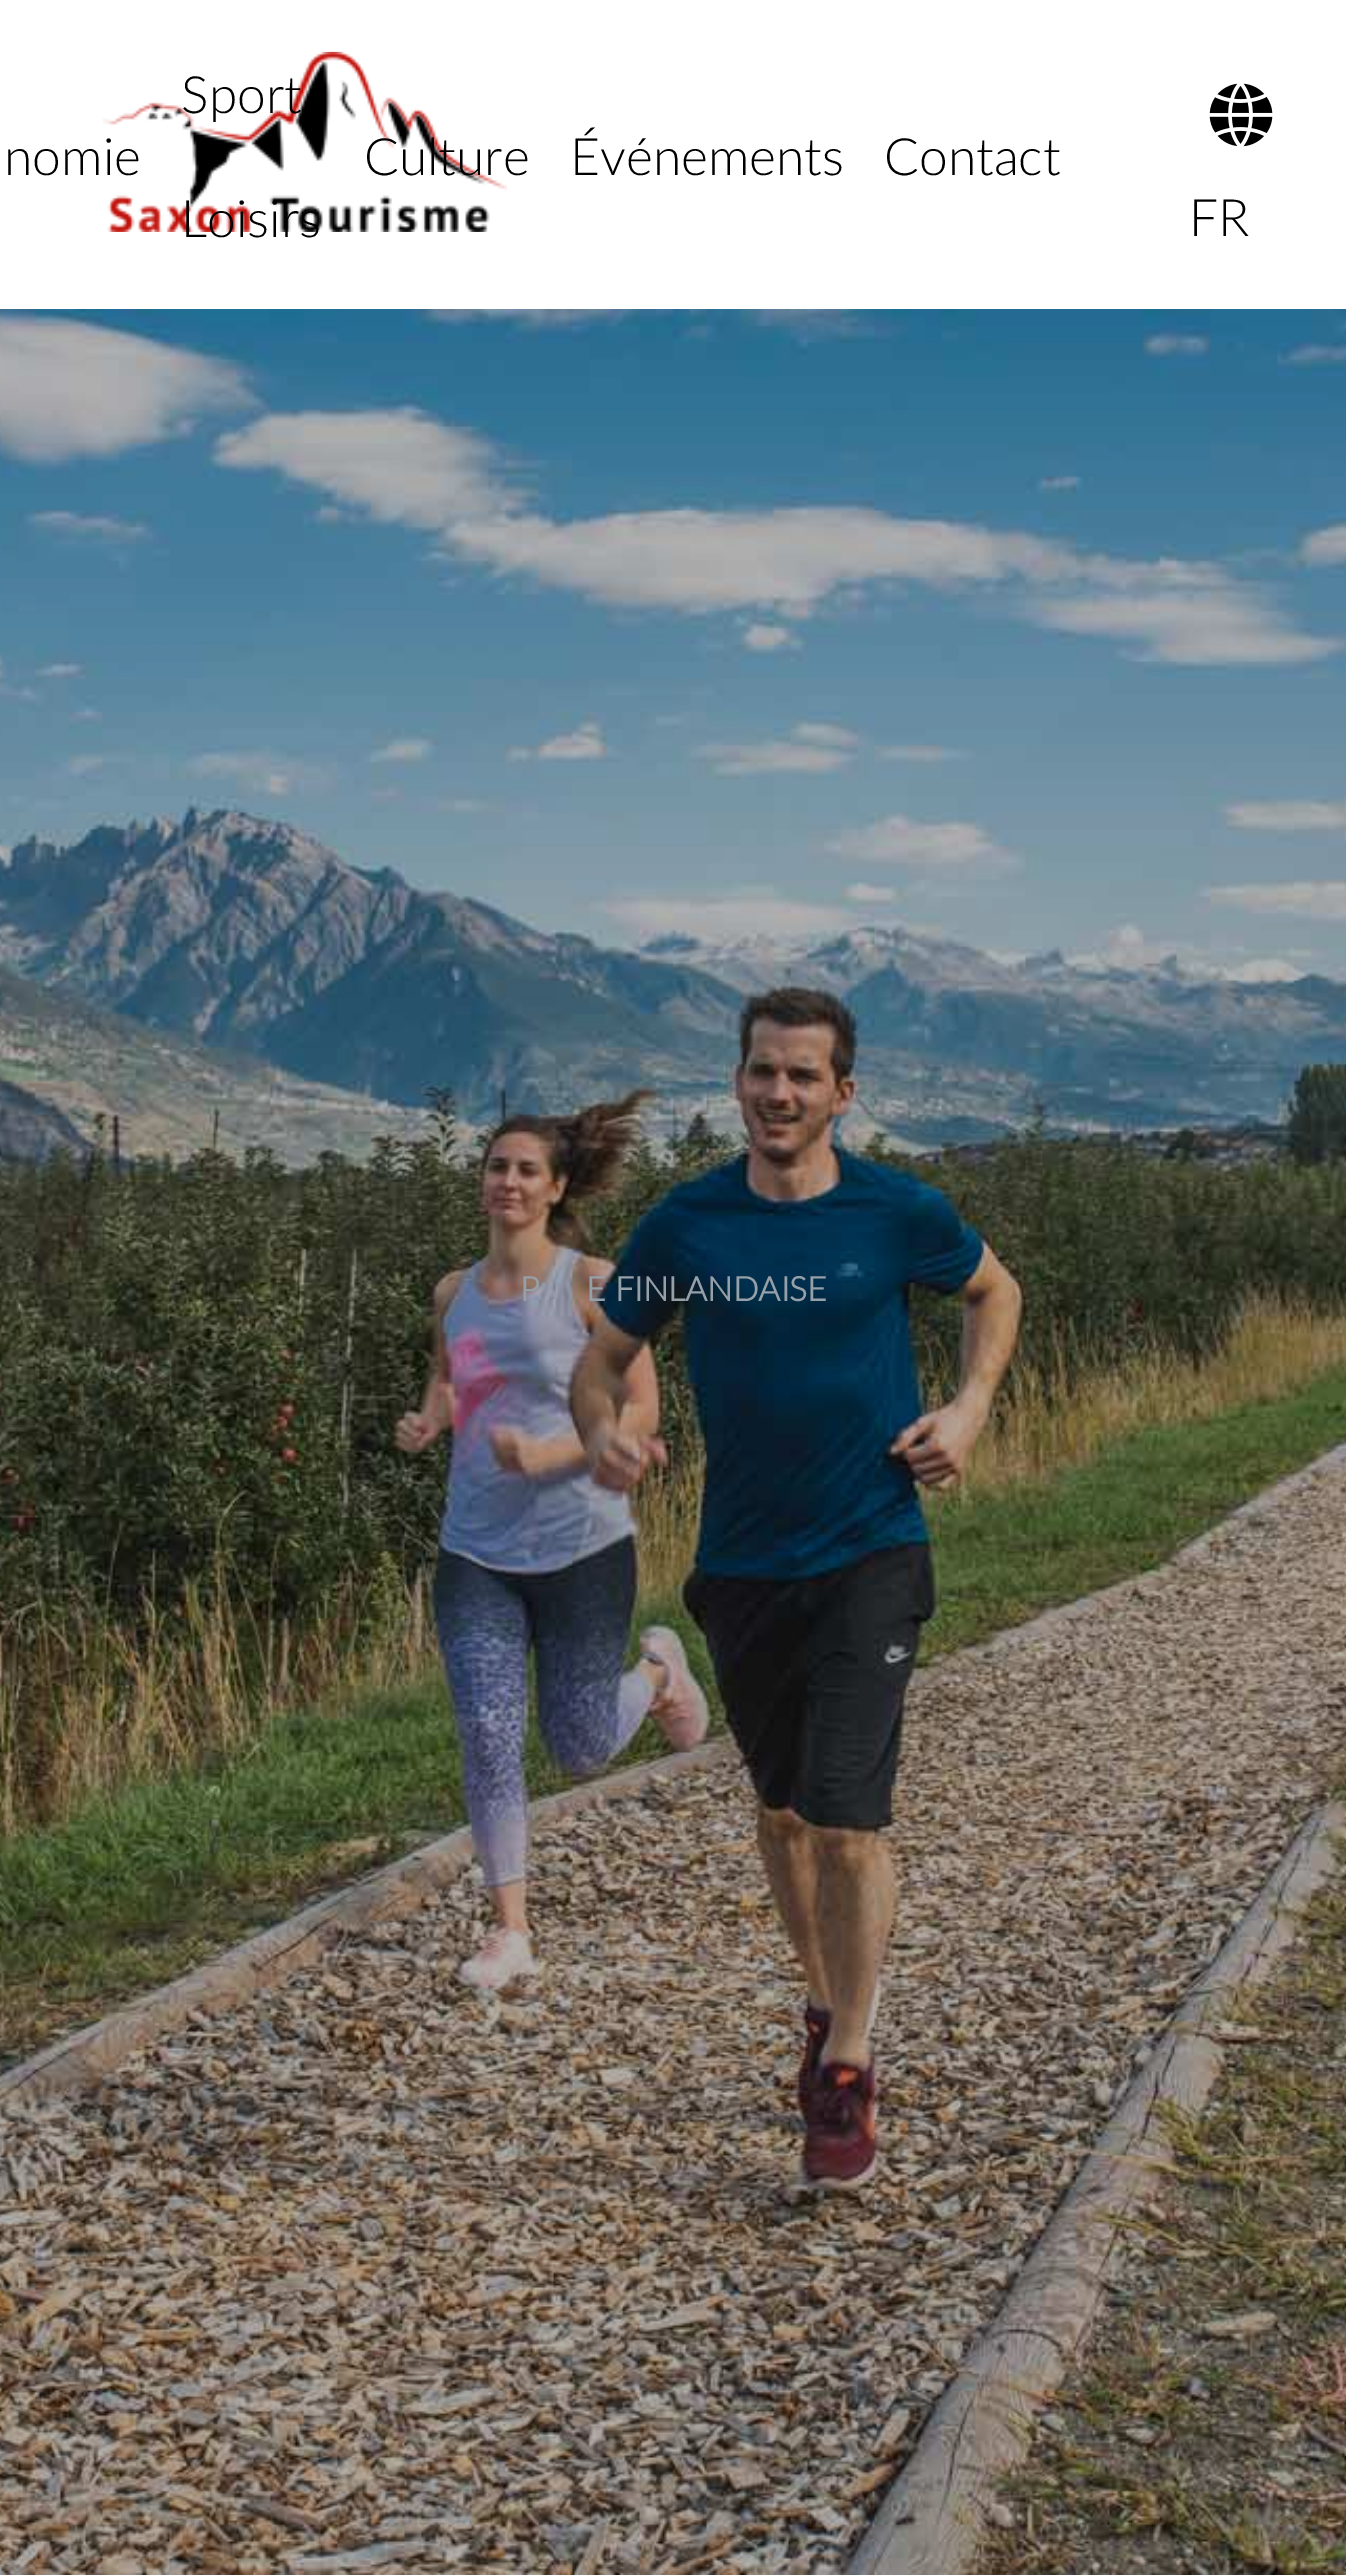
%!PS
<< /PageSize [1346 2575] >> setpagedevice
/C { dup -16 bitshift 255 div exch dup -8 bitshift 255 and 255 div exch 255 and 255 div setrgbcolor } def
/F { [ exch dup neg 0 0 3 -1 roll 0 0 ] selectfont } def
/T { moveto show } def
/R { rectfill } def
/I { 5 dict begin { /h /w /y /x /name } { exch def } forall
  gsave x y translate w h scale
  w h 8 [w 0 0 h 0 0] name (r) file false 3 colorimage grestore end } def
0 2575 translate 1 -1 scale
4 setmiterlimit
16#FFFFFF C
0 0 1346 2575 R
(1.rgb) 103 51 404 181 I
/Lato-Light 51.5 F
16#000000 C
(nomie) 4 175 T
(Sport) 181 113 T
(Loisirs) 181 237 T
(Culture) 364 175 T
(Événements) 570 175 T
(Contact) 884 175 T
(2.rgb) 1209 83 64 64 I
(FR) 1189 236 T
(3.rgb) 0 309 1346 2266 I
/Lato-Bold 33.75 F
16#96A0A8 C
(P) 520 1301 T
(E FINLANDAISE) 586 1301 T
showpage
